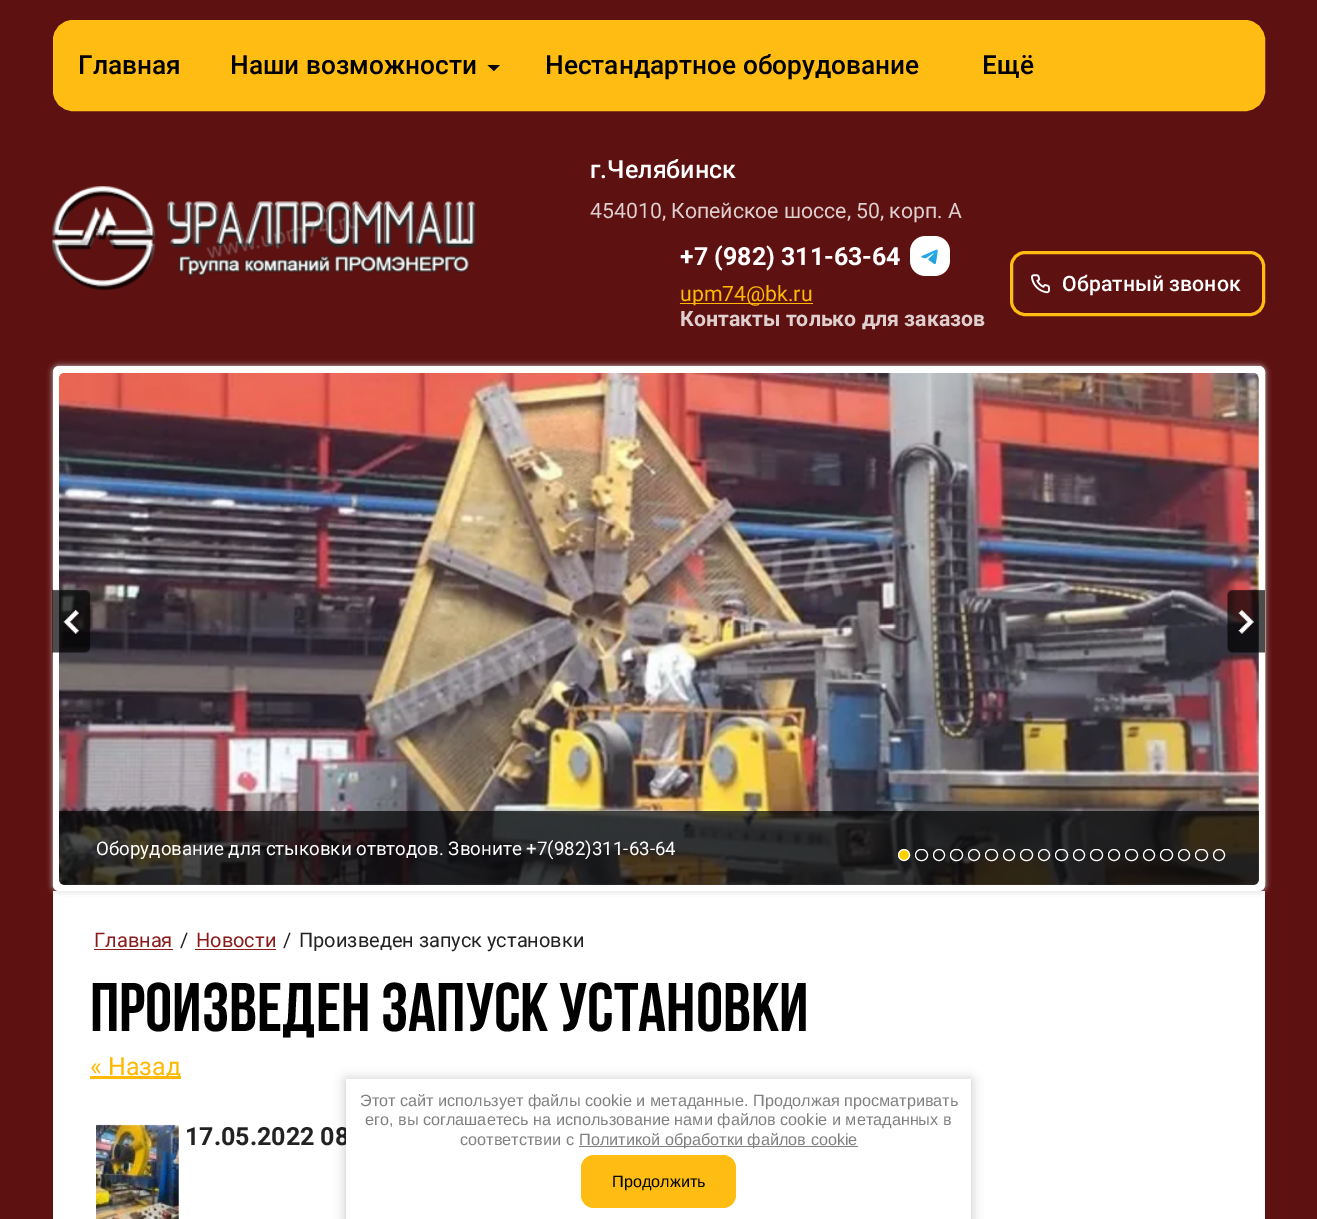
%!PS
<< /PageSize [1317 1219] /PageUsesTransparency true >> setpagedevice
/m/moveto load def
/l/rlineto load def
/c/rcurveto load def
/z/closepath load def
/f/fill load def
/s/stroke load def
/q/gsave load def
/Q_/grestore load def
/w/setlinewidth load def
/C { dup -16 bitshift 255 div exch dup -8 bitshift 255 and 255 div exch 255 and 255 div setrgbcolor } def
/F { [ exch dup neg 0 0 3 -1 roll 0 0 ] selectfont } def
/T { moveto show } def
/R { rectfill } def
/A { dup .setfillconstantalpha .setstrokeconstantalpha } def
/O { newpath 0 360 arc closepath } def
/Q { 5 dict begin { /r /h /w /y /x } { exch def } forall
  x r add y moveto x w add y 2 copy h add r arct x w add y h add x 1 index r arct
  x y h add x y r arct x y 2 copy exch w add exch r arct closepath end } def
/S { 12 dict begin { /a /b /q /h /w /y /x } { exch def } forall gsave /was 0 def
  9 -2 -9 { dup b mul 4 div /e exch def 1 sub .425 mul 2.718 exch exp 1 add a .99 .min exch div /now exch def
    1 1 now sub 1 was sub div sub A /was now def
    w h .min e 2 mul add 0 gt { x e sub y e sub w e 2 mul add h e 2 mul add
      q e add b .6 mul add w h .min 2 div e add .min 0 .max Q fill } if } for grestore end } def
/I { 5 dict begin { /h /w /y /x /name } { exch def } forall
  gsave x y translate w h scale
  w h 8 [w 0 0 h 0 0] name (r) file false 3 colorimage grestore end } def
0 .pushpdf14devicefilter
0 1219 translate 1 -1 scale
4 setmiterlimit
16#5D1111 C
0 0 1317 1219 R
16#FFBD13 C
54.5 21.5 1209 88 18.5 Q q f Q_
3 w
s
/Roboto-Medium 26.25 F
16#000000 C
(Главная) 78 74 T
(Наши возможности) 230 74 T
487.5 65 m 12.5 0 l -6 6 l z f
(Нестандартное оборудование) 545 74 T
(Ещё) 982 74 T
(1.rgb) 52 186 424 104 I
/Roboto-Medium 25 F
16#FFFFFF C
(г.Челябинск) 590 178 T
/Roboto-Regular 21.25 F
16#DFCFCF C
(454010, Копейское шоссе, 50, корп. A) 590 218 T
/Roboto-Bold 25 F
16#FFFFFF C
(+7 \(982\) 311-63-64) 680 265 T
(2.rgb) 910 236 40 40 I
16#FFB902 C
680 303 133 1 R
/Roboto-Regular 21.25 F
(upm74@bk.ru) 680 301 T
/Roboto-Bold 21.25 F
16#DFCFCF C
(Контакты только для заказов) 680 326 T
16#FFBD13 C
1011.5 252.5 252 62 13.5 Q s
(3.rgb) 1031 274 19 20 I
/Roboto-Medium 21.25 F
16#FFFFFF C
(Обратный звонок) 1062 291 T
53 891 1212 328 R
16#CCCCCC C
53 366 1212 525 6 3 1 S
16#FFFFFF C
56 369 1206 519 3 Q q f Q_
6 w
s
(6.rgb) 59 373 1200 512 I
(4.rgb) 52 589 39 64 I
(5.rgb) 1227 589 38 64 I
0.7 A
16#000000 C
59 811 m 1200 0 l 0 68 l 0 3.5 -2.5 6 -6 6 c -1188 0 l -3.5 0 -6 -2.5 -6 -6 c z f
/Roboto-Regular 18.75 F
1 A
16#FFFFFF C
(Оборудование для стыковки отвтодов. Звоните +7\(982\)311-63-64) 96 855 T
16#FFD000 C
904 855 5.5 O q f Q_
16#FFFFFF C
1 w
s
915.5 849.5 12 11 5.5 Q s
939 855 5.5 O s
950.5 849.5 12 11 5.5 Q s
974 855 5.5 O s
985.5 849.5 12 11 5.5 Q s
1009 855 5.5 O s
1020.5 849.5 12 11 5.5 Q s
1044 855 5.5 O s
1055.5 849.5 12 11 5.5 Q s
1079 855 5.5 O s
1090.5 849.5 12 11 5.5 Q s
1114 855 5.5 O s
1125.5 849.5 12 11 5.5 Q s
1149 855 5.5 O s
1160.5 849.5 12 11 5.5 Q s
1184 855 5.5 O s
1195.5 849.5 12 11 5.5 Q s
1219 855 5.5 O s
/Roboto-Regular 20 F
16#8B1B1A C
(Главная) 94 947 T
94 949 79 1 R
16#222222 C
(/) 180 947 T
16#8B1B1A C
(Новости) 196 947 T
195 949 81 1 R
16#222222 C
(/) 283 947 T
(Произведен запуск установки) 299 947 T
/BebasNeue-Bold 68.75 F
16#000000 C
(Произведен запуск установки) 90 1031 T
16#FFB902 C
90 1076 91 3 R
/Roboto-Regular 25 F
(« Назад) 90 1075 T
(7.rgb) 96 1124 83 95 I
/Roboto-Bold 25 F
16#222222 C
(17.05.2022 08) 185 1145 T
16#000000 C
346 1080 625 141 0 6 .23 S
16#FFFFFF C
346 1079 625 140 R
/LiberationSans-Regular 16.25 F
16#808080 C
(Этот сайт использует файлы cookie и метаданные. Продолжая просматривать) 360 1106 T
(его, вы соглашаетесь на использование нами файлов cookie и метаданных в) 365 1125 T
(соответствии с) 460 1145 T
579 1146 279 1 R
(Политикой обработки файлов cookie) 579 1145 T
16#FFBD13 C
581 1155 155 53 13 Q f
16#000000 C
(Продолжить) 612 1187 T
.poppdf14devicefilter showpage
